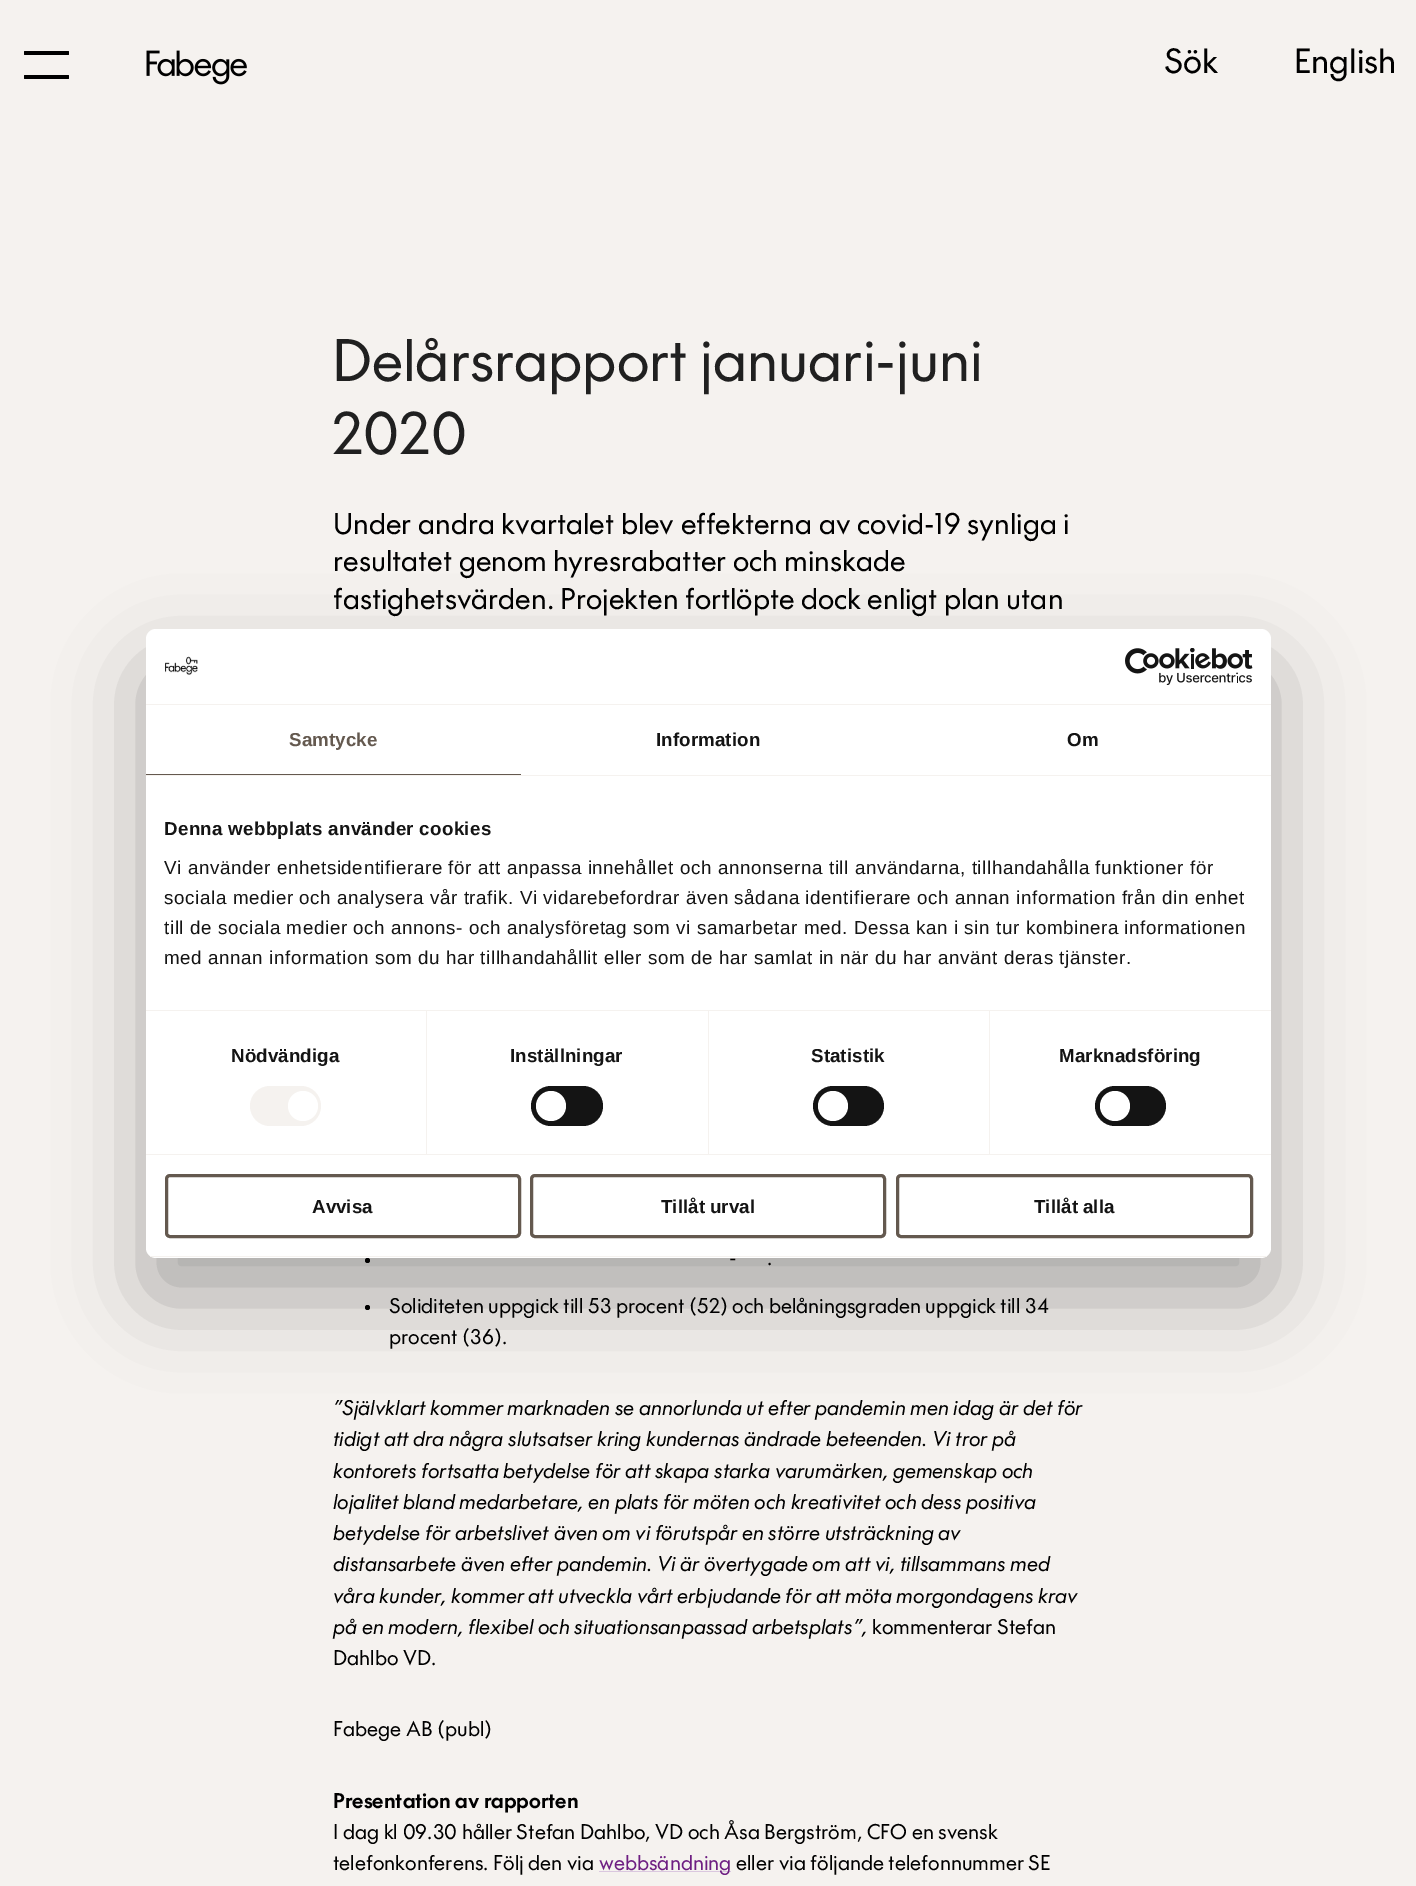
%!PS
<< /PageSize [1416 1886] /PageUsesTransparency true >> setpagedevice
/m/moveto load def
/f/fill load def
/s/stroke load def
/q/gsave load def
/Q_/grestore load def
/w/setlinewidth load def
/C { dup -16 bitshift 255 div exch dup -8 bitshift 255 and 255 div exch 255 and 255 div setrgbcolor } def
/F { [ exch dup neg 0 0 3 -1 roll 0 0 ] selectfont } def
/T { moveto show } def
/R { rectfill } def
/A { dup .setfillconstantalpha .setstrokeconstantalpha } def
/O { newpath 0 360 arc closepath } def
/Q { 5 dict begin { /r /h /w /y /x } { exch def } forall
  x r add y moveto x w add y 2 copy h add r arct x w add y h add x 1 index r arct
  x y h add x y r arct x y 2 copy exch w add exch r arct closepath end } def
/S { 12 dict begin { /a /b /q /h /w /y /x } { exch def } forall gsave /was 0 def
  9 -2 -9 { dup b mul 4 div /e exch def 1 sub .425 mul 2.718 exch exp 1 add a .99 .min exch div /now exch def
    1 1 now sub 1 was sub div sub A /was now def
    w h .min e 2 mul add 0 gt { x e sub y e sub w e 2 mul add h e 2 mul add
      q e add b .6 mul add w h .min 2 div e add .min 0 .max Q fill } if } for grestore end } def
/I { 5 dict begin { /h /w /y /x /name } { exch def } forall
  gsave x y translate w h scale
  w h 8 [w 0 0 h 0 0] name (r) file false 3 colorimage grestore end } def
0 .pushpdf14devicefilter
0 1886 translate 1 -1 scale
4 setmiterlimit
16#F5F2EF C
0 0 1416 1886 R
16#000000 C
24 51 45 4 1 Q f
24 75 45 4 1 Q f
(1.rgb) 146 50 101 35 I
/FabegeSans-Regular 35 F
(Sök) 1164 73 T
(English) 1294 73 T
/FabegeSans-Regular 60 F
16#202020 C
(Delårsrapport januari-juni) 332 381 T
(2020) 332 454 T
/FabegeSans-Regular 30 F
16#000000 C
(Under andra kvartalet blev effekterna av covid-19 synliga i) 333 534 T
(resultatet genom hyresrabatter och minskade) 333 571 T
(fastighetsvärden. Projekten fortlöpte dock enligt plan utan) 333 609 T
367.5 1260.5 2.5 O f
/FabegeSans-Regular 21.25 F
(-) 729 1265 T
(.) 767 1265 T
367.5 1307.5 2.5 O f
(Soliditeten uppgick till 53 procent \(52\) och belåningsgraden uppgick till 34) 389 1313 T
(procent \(36\).) 389 1344 T
/FabegeSans-Italic 21.25 F
(”Självklart kommer marknaden se annorlunda ut efter pandemin men idag är det för) 333 1415 T
(tidigt att dra några slutsatser kring kundernas ändrade beteenden. Vi tror på) 333 1446 T
(kontorets fortsatta betydelse för att skapa starka varumärken, gemenskap och) 333 1478 T
(lojalitet bland medarbetare, en plats för möten och kreativitet och dess positiva) 333 1509 T
(betydelse för arbetslivet även om vi förutspår en större utsträckning av) 333 1540 T
(distansarbete även efter pandemin. Vi är övertygade om att vi, tillsammans med) 333 1571 T
(våra kunder, kommer att utveckla vårt erbjudande för att möta morgondagens krav) 333 1603 T
(på en modern, flexibel och situationsanpassad arbetsplats”,) 333 1634 T
/FabegeSans-Regular 21.25 F
(kommenterar Stefan) 872 1634 T
(Dahlbo VD.) 333 1665 T
(Fabege AB \(publ\)) 333 1736 T
/FabegeSans-Bold 21.25 F
(Presentation av rapporten) 333 1808 T
/FabegeSans-Regular 21.25 F
(I dag kl 09.30 håller Stefan Dahlbo, VD och Åsa Bergström, CFO en svensk) 333 1839 T
(telefonkonferens. Följ den via) 333 1870 T
16#DAC7DF C
599 1871 132 1 R
16#6E1E82 C
(webbsändning) 599 1870 T
16#000000 C
(eller via följande telefonnummer SE) 736 1870 T
146 669 1125 629 10 42.5 .3 S
16#FFFFFF C
146 629 1125 629 10 Q f
16#F5F2EF C
146 704 1125 1 R
(2.rgb) 165 656 33 19 I
(3.rgb) 1125 648 128 37 I
146 775 1125 1 R
16#64594F C
146 774 375 1 R
/LiberationSans-Bold 18.75 F
289 746 m .1 0 (Samtycke) ashow
16#141414 C
656 746 m .1 0 (Information) ashow
1067 746 m .1 0 (Om) ashow
16#F5F2EF C
146 1010 1125 1 R
16#141414 C
164 835 m .3 0 (Denna webbplats använder cookies) ashow
/LiberationSans-Regular 18.75 F
164 874 m .62 0 (Vi använder enhetsidentifierare för att anpassa innehållet och annonserna till användarna, tillhandahålla funktioner för) ashow
164 904 m .62 0 (sociala medier och analysera vår trafik. Vi vidarebefordrar även sådana identifierare och annan information från din enhet) ashow
164 934 m .62 0 (till de sociala medier och annons- och analysföretag som vi samarbetar med. Dessa kan i sin tur kombinera informationen) ashow
164 964 m .62 0 (med annan information som du har tillhandahållit eller som de har samlat in när du har använt deras tjänster.) ashow
16#F5F2EF C
146 1154 1125 1 R
426 1011 1 143 R
/LiberationSans-Bold 18.75 F
16#141414 C
231 1062 m .1 0 (Nödvändiga) ashow
16#F5F2EF C
250 1086 71 40 20 Q f
16#FFFFFF C
303 1106 15 O f
16#F5F2EF C
708 1011 1 143 R
16#141414 C
510 1062 m .1 0 (Inställningar) ashow
531 1086 72 40 20 Q f
16#FFFFFF C
551 1106 15 O f
16#F5F2EF C
989 1011 1 143 R
16#141414 C
811 1062 m .1 0 (Statistik) ashow
813 1086 71 40 20 Q f
16#FFFFFF C
833 1106 15 O f
16#141414 C
1059 1062 m .1 0 (Marknadsföring) ashow
1095 1086 71 40 20 Q f
16#FFFFFF C
1115 1106 15 O f
q
146 629 1125 629 10 Q clip newpath
16#F5F2EF C
146 1256 1125 1 R
Q_
16#64594F C
3 w
166.5 1175.5 353 61 3.5 Q s
16#141414 C
(Avvisa) 312 1213 T
16#64594F C
531.5 1175.5 353 61 3.5 Q s
16#141414 C
(Tillåt urval) 661 1213 T
16#64594F C
897.5 1175.5 354 61 3.5 Q s
16#141414 C
(Tillåt alla) 1034 1213 T
.poppdf14devicefilter showpage
